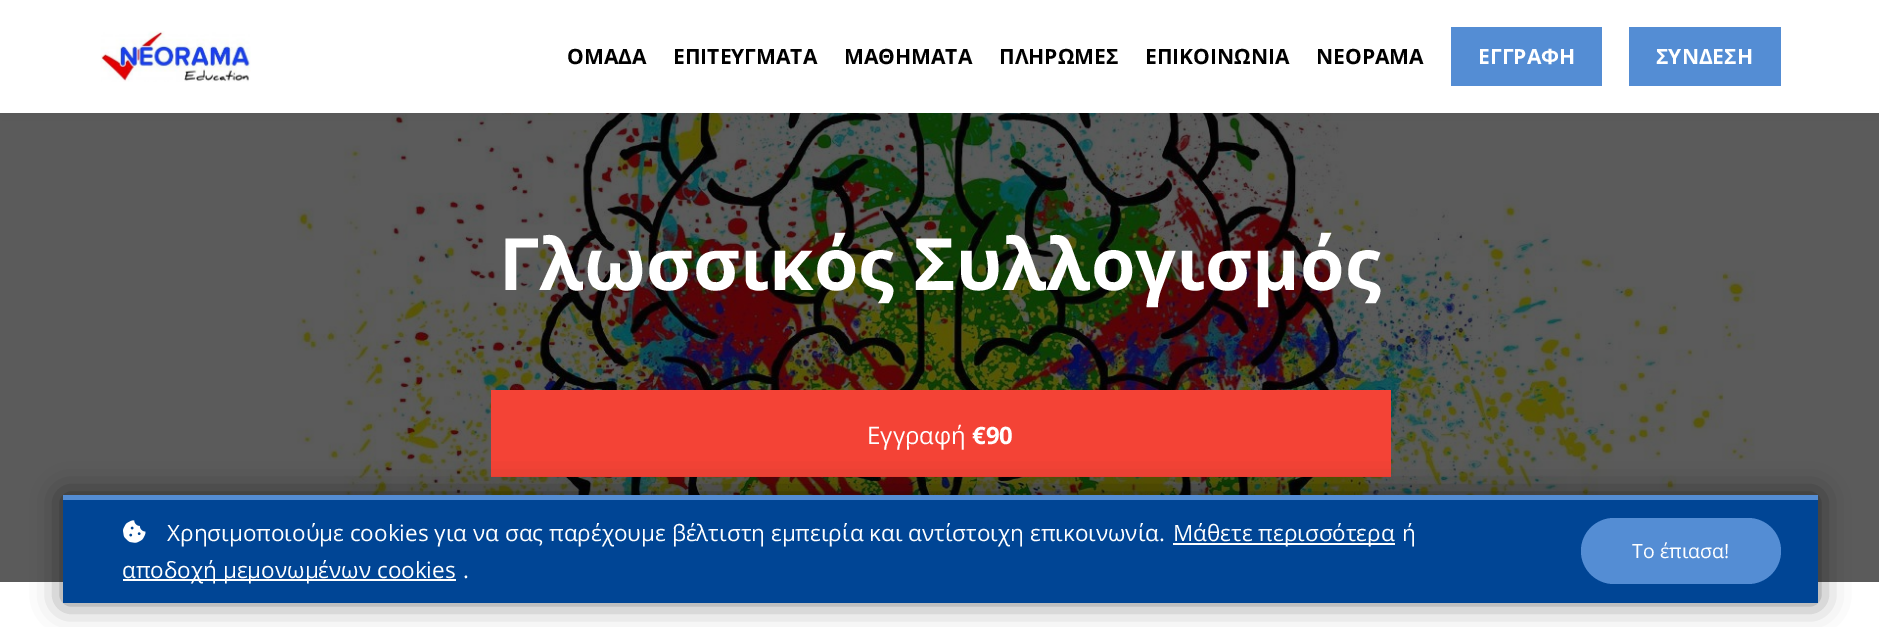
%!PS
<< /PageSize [1879 627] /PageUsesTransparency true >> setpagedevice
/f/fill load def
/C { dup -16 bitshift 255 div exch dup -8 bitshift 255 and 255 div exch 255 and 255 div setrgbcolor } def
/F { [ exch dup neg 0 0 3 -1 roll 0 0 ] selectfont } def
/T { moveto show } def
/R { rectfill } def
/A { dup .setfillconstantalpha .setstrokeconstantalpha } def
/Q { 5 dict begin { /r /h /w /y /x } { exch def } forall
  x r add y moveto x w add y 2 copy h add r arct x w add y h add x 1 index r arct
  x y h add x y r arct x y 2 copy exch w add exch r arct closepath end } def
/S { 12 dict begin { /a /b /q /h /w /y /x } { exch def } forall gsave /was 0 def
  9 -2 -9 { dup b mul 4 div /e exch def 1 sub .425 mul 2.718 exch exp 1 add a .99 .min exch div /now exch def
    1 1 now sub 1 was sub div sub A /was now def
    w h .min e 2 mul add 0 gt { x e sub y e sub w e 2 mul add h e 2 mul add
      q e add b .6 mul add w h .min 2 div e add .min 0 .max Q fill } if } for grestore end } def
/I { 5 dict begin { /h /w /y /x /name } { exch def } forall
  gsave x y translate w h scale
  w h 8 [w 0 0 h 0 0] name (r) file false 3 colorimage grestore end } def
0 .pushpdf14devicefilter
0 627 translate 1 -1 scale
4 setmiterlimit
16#FFFFFF C
0 0 1879 627 R
(2.rgb) 0 113 1879 469 I
16#000000 C
0 0 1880 113 0 11 .05 S
16#FFFFFF C
0 0 1879 113 R
(1.rgb) 100 31 151 51 I
/OpenSans-Bold 21 F
16#000000 C
(ΟΜΑΔΑ) 567 64 T
(ΕΠΙΤΕΥΓΜΑΤΑ) 673 64 T
(ΜΑΘΗΜΑΤΑ) 844 64 T
(ΠΛΗΡΩΜΕΣ) 999 64 T
(ΕΠΙΚΟΙΝΩΝΙΑ) 1145 64 T
(ΝΕΟΡΑΜΑ) 1316 64 T
16#548DD4 C
1451 27 151 59 R
16#FFFFFF C
(ΕΓΓΡΑΦΗ) 1478 64 T
16#548DD4 C
1629 27 152 59 R
16#FFFFFF C
(ΣΥΝΔΕΣΗ) 1656 64 T
/OpenSans-Bold 72 F
(Γλωσσικός Συλλογισμός) 499 290 T
16#F44336 C
491 390 900 87 R
/OpenSans-Regular 24 F
16#FFFFFF C
(Εγγραφή) 867 444 T
/OpenSans-Bold 24 F
(€90) 972 444 T
16#000000 C
63 495 1755 108 0 15 .5 S
16#004595 C
63 500 1755 103 R
16#548DD4 C
63 495 1755 5 R
(3.rgb) 123 520 23 23 I
/OpenSans-Regular 22.5 F
16#FFFFFF C
(Χρησιμοποιούμε cookies για να σας παρέχουμε βέλτιστη εμπειρία και αντίστοιχη επικοινωνία.) 167 541 T
1173 543 222 2 R
(Μάθετε περισσότερα) 1173 541 T
(ή) 1402 541 T
123 579 333 2 R
(αποδοχή μεμονωμένων cookies) 122 578 T
(.) 463 578 T
16#548DD4 C
1581 518 200 66 33 Q f
/OpenSans-Regular 19.5 F
16#FFFFFF C
(Το έπιασα!) 1632 558 T
.poppdf14devicefilter showpage
